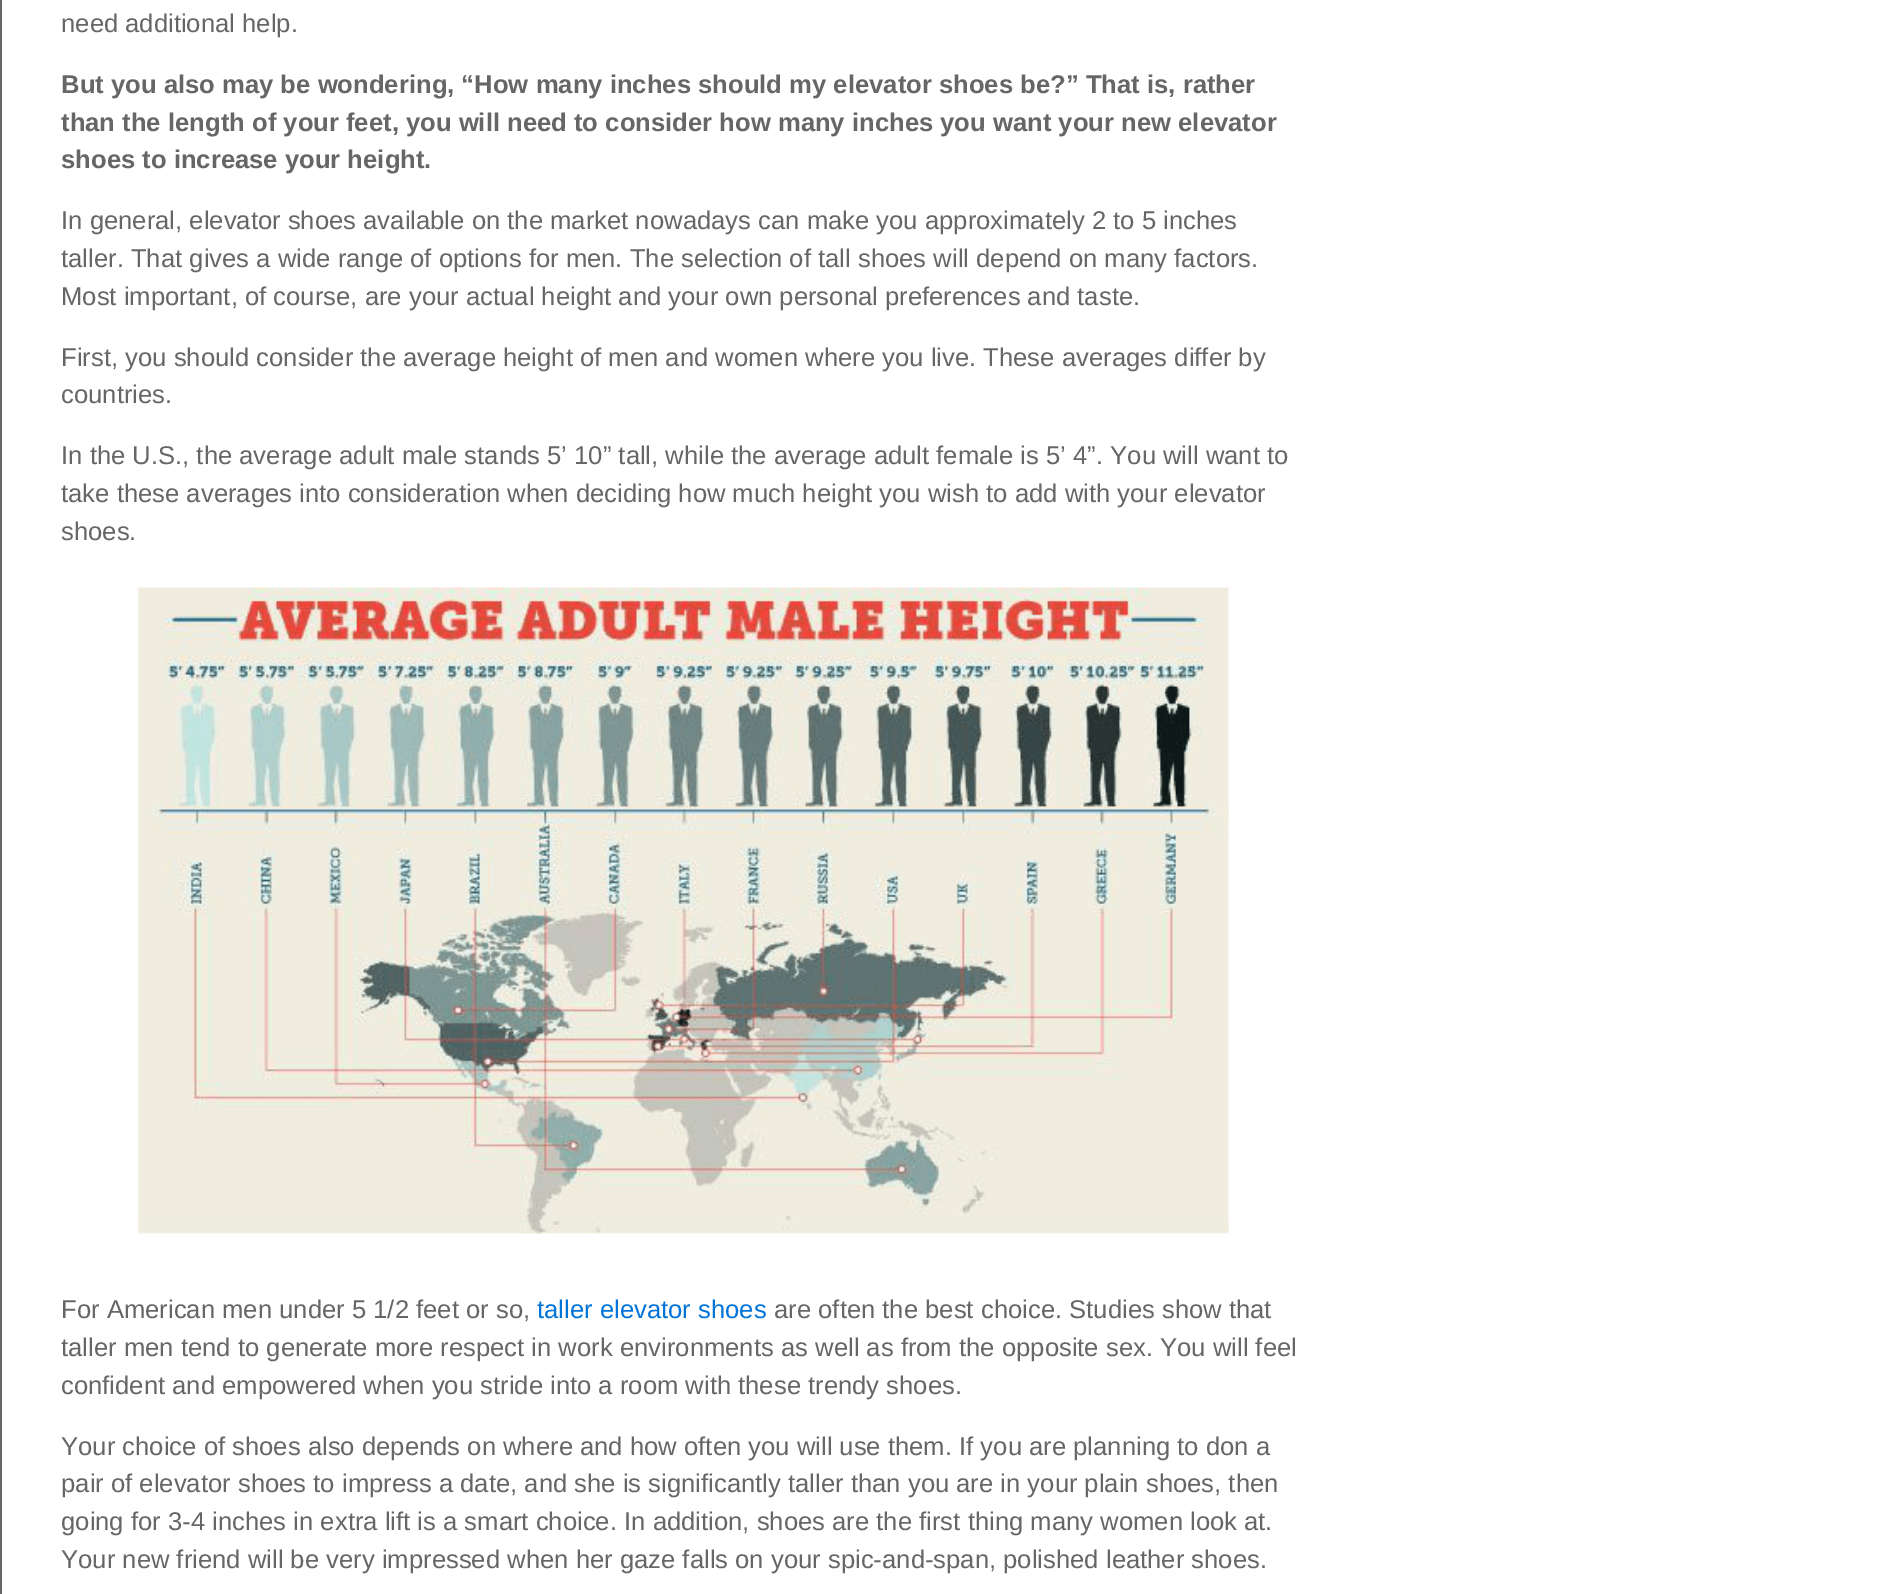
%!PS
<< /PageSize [1882 1594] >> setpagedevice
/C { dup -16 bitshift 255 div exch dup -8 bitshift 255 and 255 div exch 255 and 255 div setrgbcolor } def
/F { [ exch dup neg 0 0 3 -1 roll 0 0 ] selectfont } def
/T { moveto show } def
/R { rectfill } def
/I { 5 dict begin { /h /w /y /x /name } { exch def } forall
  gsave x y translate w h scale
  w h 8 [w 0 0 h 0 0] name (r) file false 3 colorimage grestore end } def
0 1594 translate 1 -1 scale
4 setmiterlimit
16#FFFFFF C
0 0 1882 1594 R
16#666666 C
0 0 2 1594 R
/LiberationSans-Regular 25.65 F
(need additional help.) 61 32 T
/LiberationSans-Bold 25.65 F
(But you also may be wondering, “How many inches should my elevator shoes be?” That is, rather) 61 93 T
(than the length of your feet, you will need to consider how many inches you want your new elevator) 61 131 T
(shoes to increase your height.) 61 168 T
/LiberationSans-Regular 25.65 F
(In general, elevator shoes available on the market nowadays can make you approximately 2 to 5 inches) 61 229 T
(taller. That gives a wide range of options for men. The selection of tall shoes will depend on many factors.) 61 267 T
(Most important, of course, are your actual height and your own personal preferences and taste.) 61 305 T
(First, you should consider the average height of men and women where you live. These averages differ by) 61 366 T
(countries.) 61 403 T
(In the U.S., the average adult male stands 5’ 10” tall, while the average adult female is 5’ 4”. You will want to) 61 464 T
(take these averages into consideration when deciding how much height you wish to add with your elevator) 61 502 T
(shoes.) 61 540 T
(1.rgb) 138 587 1091 647 I
(For American men under 5 1/2 feet or so,) 61 1318 T
16#0074D9 C
(taller elevator shoes) 537 1318 T
16#666666 C
(are often the best choice. Studies show that) 774 1318 T
(taller men tend to generate more respect in work environments as well as from the opposite sex. You will feel) 61 1356 T
(confident and empowered when you stride into a room with these trendy shoes.) 61 1394 T
(Your choice of shoes also depends on where and how often you will use them. If you are planning to don a) 61 1455 T
(pair of elevator shoes to impress a date, and she is significantly taller than you are in your plain shoes, then) 61 1492 T
(going for 3-4 inches in extra lift is a smart choice. In addition, shoes are the first thing many women look at.) 61 1530 T
(Your new friend will be very impressed when her gaze falls on your spic-and-span, polished leather shoes.) 61 1568 T
showpage
